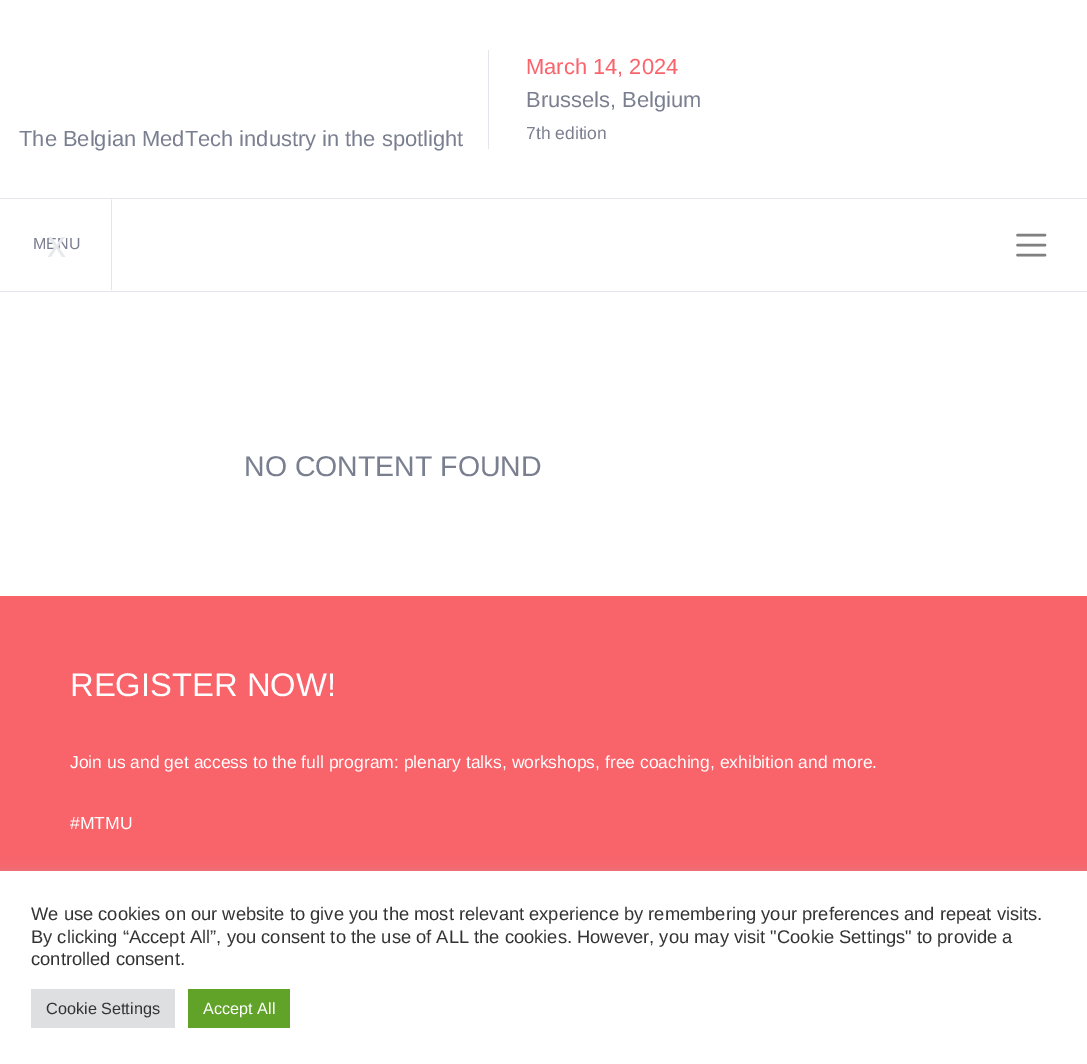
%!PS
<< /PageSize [1087 1064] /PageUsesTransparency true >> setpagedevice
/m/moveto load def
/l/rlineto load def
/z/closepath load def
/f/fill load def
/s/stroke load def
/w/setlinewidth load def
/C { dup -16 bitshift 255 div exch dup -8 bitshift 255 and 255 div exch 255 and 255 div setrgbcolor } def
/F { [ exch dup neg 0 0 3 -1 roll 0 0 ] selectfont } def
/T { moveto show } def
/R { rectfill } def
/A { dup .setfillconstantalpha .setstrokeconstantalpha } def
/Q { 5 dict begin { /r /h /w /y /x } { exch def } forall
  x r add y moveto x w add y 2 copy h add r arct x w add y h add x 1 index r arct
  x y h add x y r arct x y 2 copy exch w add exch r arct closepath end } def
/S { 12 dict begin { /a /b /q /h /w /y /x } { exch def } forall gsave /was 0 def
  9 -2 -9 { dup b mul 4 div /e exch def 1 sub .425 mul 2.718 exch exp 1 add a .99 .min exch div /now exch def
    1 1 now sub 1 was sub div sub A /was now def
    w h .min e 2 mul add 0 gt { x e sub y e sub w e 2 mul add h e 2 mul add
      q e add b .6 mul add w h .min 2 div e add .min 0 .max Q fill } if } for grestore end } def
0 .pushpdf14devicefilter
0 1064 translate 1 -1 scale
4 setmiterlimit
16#FFFFFF C
0 0 1087 1064 R
16#E4E6EC C
0 291 1087 1 R
/LiberationSans-Regular 21.9 F
16#7A7F8F C
(The Belgian MedTech industry in the spotlight) 19 146 T
16#E4E6EC C
488 50 1 99 R
16#F9636A C
(March 14, 2024) 526 74 T
16#7A7F8F C
(Brussels, Belgium) 526 107 T
/LiberationSans-Regular 17.5 F
(7th edition) 526 139 T
16#E4E6EC C
0 198 1087 1 R
112 199 m 0 92 l -1 -1 l 0 -90 l z f
16#FFFFFF C
112 291 m -112 0 l 1 -1 l 110 0 l z f
/LiberationSans-Regular 16 F
16#7A7F8F C
(MENU) 33 249 T
/LiberationSans-Regular 38 F
16#E8E9EC C
(x) 47 257 T
16#808080 C
2.5 w
1 setlinecap
1017.5 235 m 27.5 0 l 1017.5 245 m 27.5 0 l 1017.5 255 m 27.5 0 l s
/LiberationSans-Regular 28.5 F
16#7A7F8F C
(NO CONTENT FOUND) 244 476 T
16#F9636A C
0 596 1087 275 R
/LiberationSans-Regular 32.75 F
16#FFFFFF C
(REGISTER NOW!) 70 696 T
/LiberationSans-Regular 17.5 F
(Join us and get access to the full program: plenary talks, workshops, free coaching, exhibition and more.) 70 768 T
(#MTMU) 70 829 T
16#ACABAB C
0 870 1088 194 0 6 .3 S
16#FFFFFF C
0 871 1087 193 R
/LiberationSans-Regular 18.33 F
16#333333 C
(We use cookies on our website to give you the most relevant experience by remembering your preferences and repeat visits.) 31 920 T
(By clicking “Accept All”, you consent to the use of ALL the cookies. However, you may visit "Cookie Settings" to provide a) 31 943 T
(controlled consent.) 31 965 T
16#DEDFE0 C
31 989 144 39 R
/LiberationSans-Regular 16.25 F
16#333333 C
(Cookie Settings) 46 1014 T
16#61A229 C
188 989 102 39 R
16#FFFFFF C
(Accept All) 203 1014 T
.poppdf14devicefilter showpage
